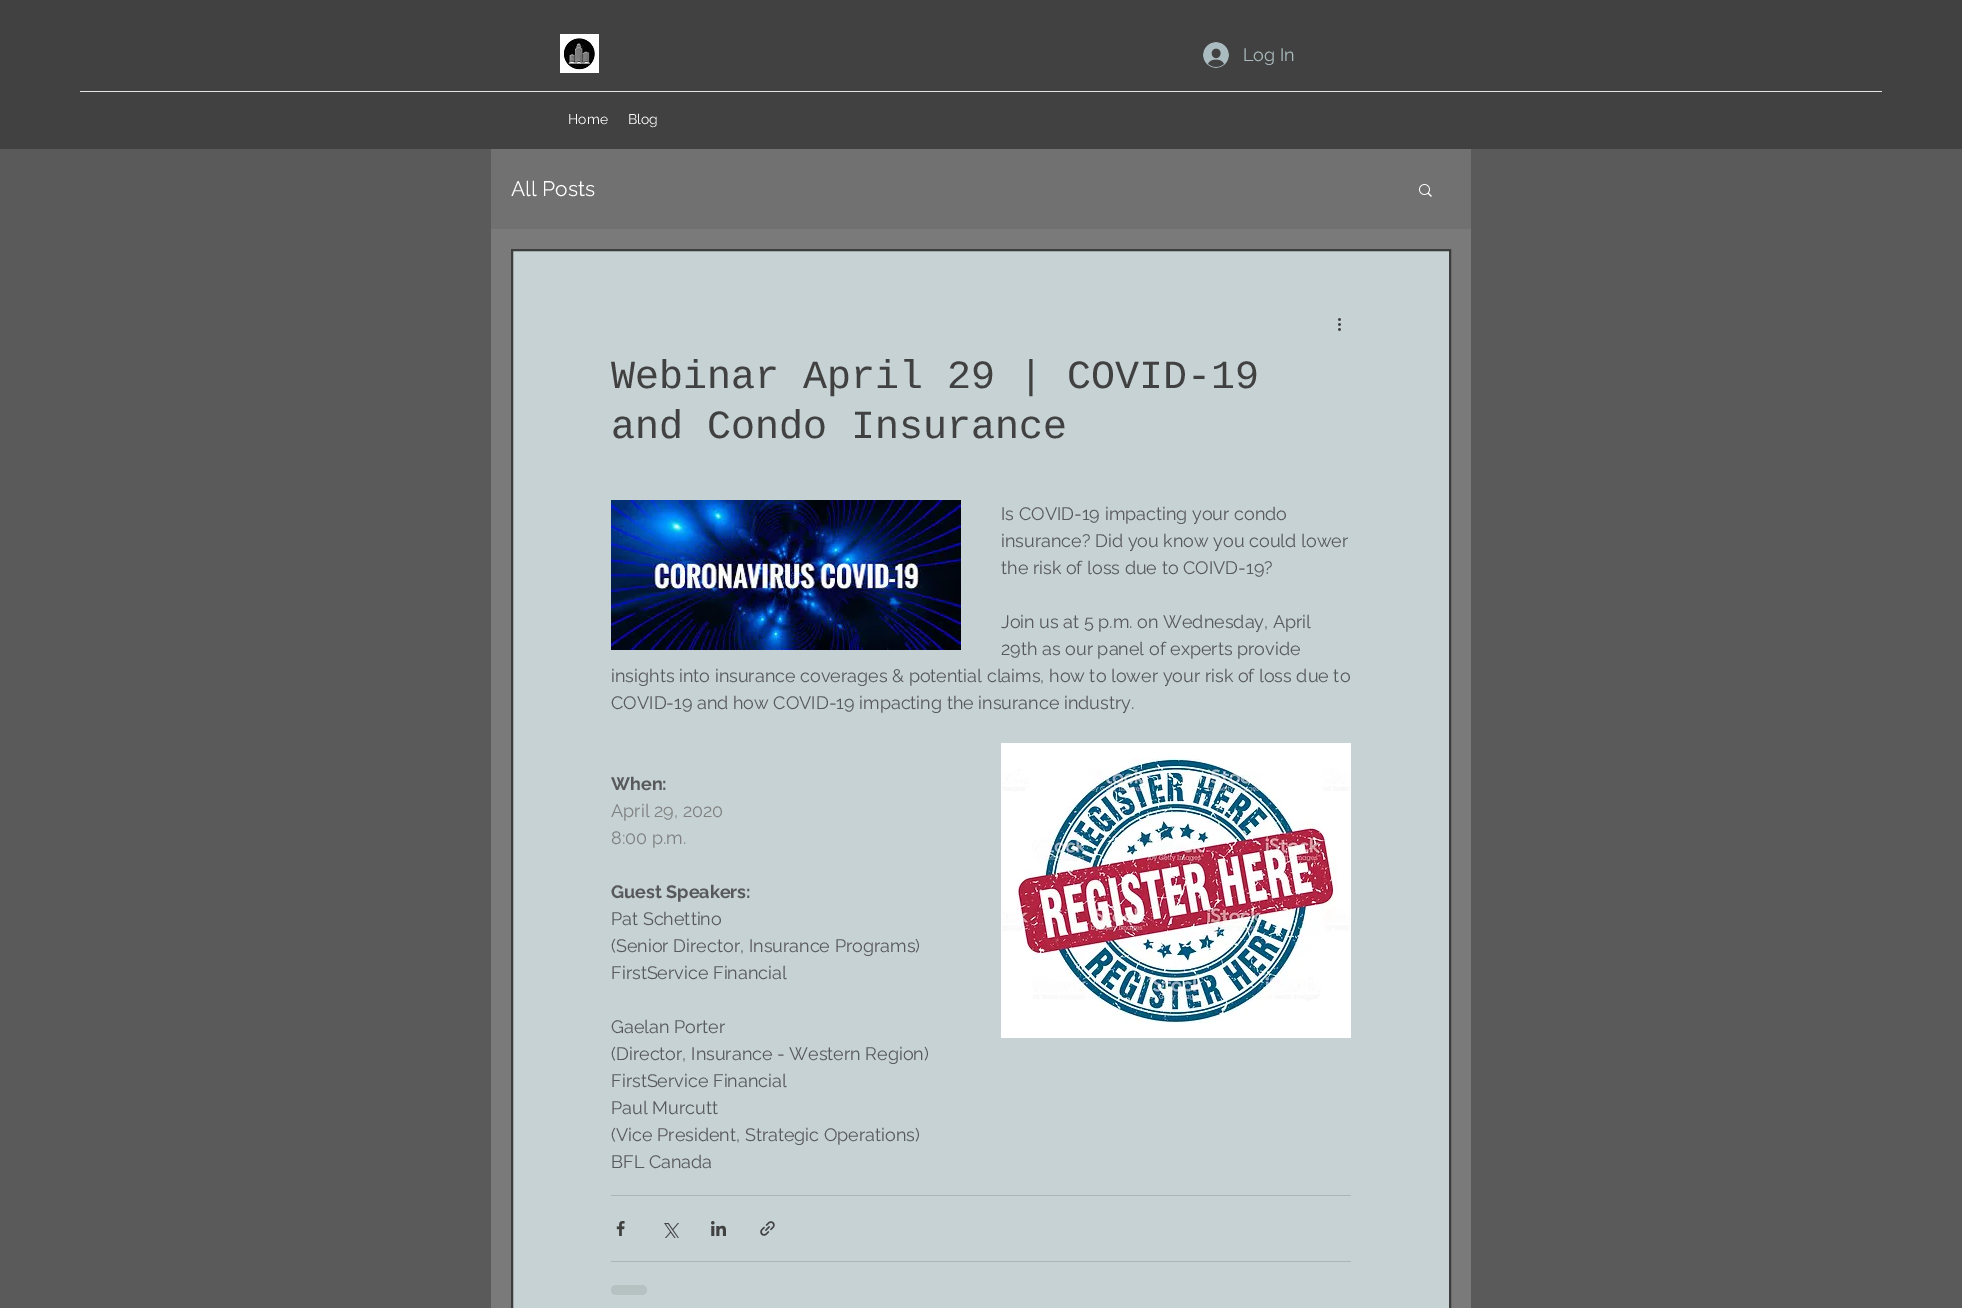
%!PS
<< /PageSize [1962 1308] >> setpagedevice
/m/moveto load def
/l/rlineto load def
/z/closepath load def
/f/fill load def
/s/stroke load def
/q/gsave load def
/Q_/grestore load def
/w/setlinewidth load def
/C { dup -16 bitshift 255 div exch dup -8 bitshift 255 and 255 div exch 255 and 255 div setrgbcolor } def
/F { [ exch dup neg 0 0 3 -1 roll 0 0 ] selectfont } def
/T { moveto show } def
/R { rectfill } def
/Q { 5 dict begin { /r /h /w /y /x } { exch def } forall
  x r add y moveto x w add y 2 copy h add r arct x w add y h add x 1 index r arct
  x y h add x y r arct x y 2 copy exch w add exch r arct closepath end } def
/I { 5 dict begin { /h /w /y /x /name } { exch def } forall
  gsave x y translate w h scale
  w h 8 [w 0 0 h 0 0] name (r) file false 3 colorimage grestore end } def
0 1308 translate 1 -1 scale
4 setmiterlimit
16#5A5A5A C
0 0 1962 1308 R
16#414141 C
0 0 1962 149 R
(1.rgb) 560 34 39 39 I
(2.rgb) 1203 42 26 26 I
/Raleway-Regular 18 F
16#AABCBF C
(Log In) 1243 61 T
16#E3E3E3 C
80 91 1802 1 R
/Raleway-Regular 14 F
16#FFFFFF C
(Home) 568 124 T
(Blog) 628 124 T
16#7A7A7A C
491 229 980 1079 R
16#717171 C
491 149 980 80 R
/Raleway-Regular 21 F
16#FFFFFF C
(All Posts) 511 196 T
(3.rgb) 1419 184 13 13 I
16#C6D2D4 C
512 250 m 938 0 l 0 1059 l -938 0 l z q f Q_
16#3D3D3D C
2 w
s
(4.rgb) 1338 318 3 13 I
/LiberationMono-Regular 40 F
16#414141 C
(Webinar April 29 | COVID-19) 611 388 T
(and Condo Insurance) 611 438 T
(5.rgb) 611 500 350 150 I
/Raleway-Regular 18 F
16#58595B C
(Is COVID-19 impacting your condo) 1001 520 T
(insurance? Did you know you could lower) 1001 547 T
(the risk of loss due to COIVD-19?) 1001 574 T
(Join us at 5 p.m. on Wednesday, April) 1001 628 T
(29th as our panel of experts provide) 1001 655 T
(insights into insurance coverages & potential claims, how to lower your risk of loss due to) 611 682 T
(COVID-19 and how COVID-19 impacting the insurance industry.) 611 709 T
/Raleway-Bold 18 F
(When:) 611 790 T
/Raleway-Regular 18 F
16#808080 C
(April 29, 2020) 611 817 T
(8:00 p.m.) 611 844 T
(6.rgb) 1001 743 350 295 I
/Raleway-Bold 18 F
16#58595B C
(Guest Speakers:) 611 898 T
/Raleway-Regular 18 F
(Pat Schettino) 611 925 T
(\(Senior Director, Insurance Programs\)) 611 952 T
(FirstService Financial) 611 979 T
(Gaelan Porter) 611 1033 T
(\(Director, Insurance - Western Region\)) 611 1060 T
(FirstService Financial) 611 1087 T
(Paul Murcutt) 611 1114 T
(\(Vice President, Strategic Operations\)) 611 1141 T
(BFL Canada) 611 1168 T
16#ABB5B7 C
611 1195 740 1 R
(7.rgb) 616 1221 9 15 I
(8.rgb) 664 1223 15 15 I
(9.rgb) 711 1221 15 15 I
(10.rgb) 760 1221 15 15 I
611 1261 740 1 R
16#B6C1C2 C
611 1285 36 10 5 Q f
showpage
